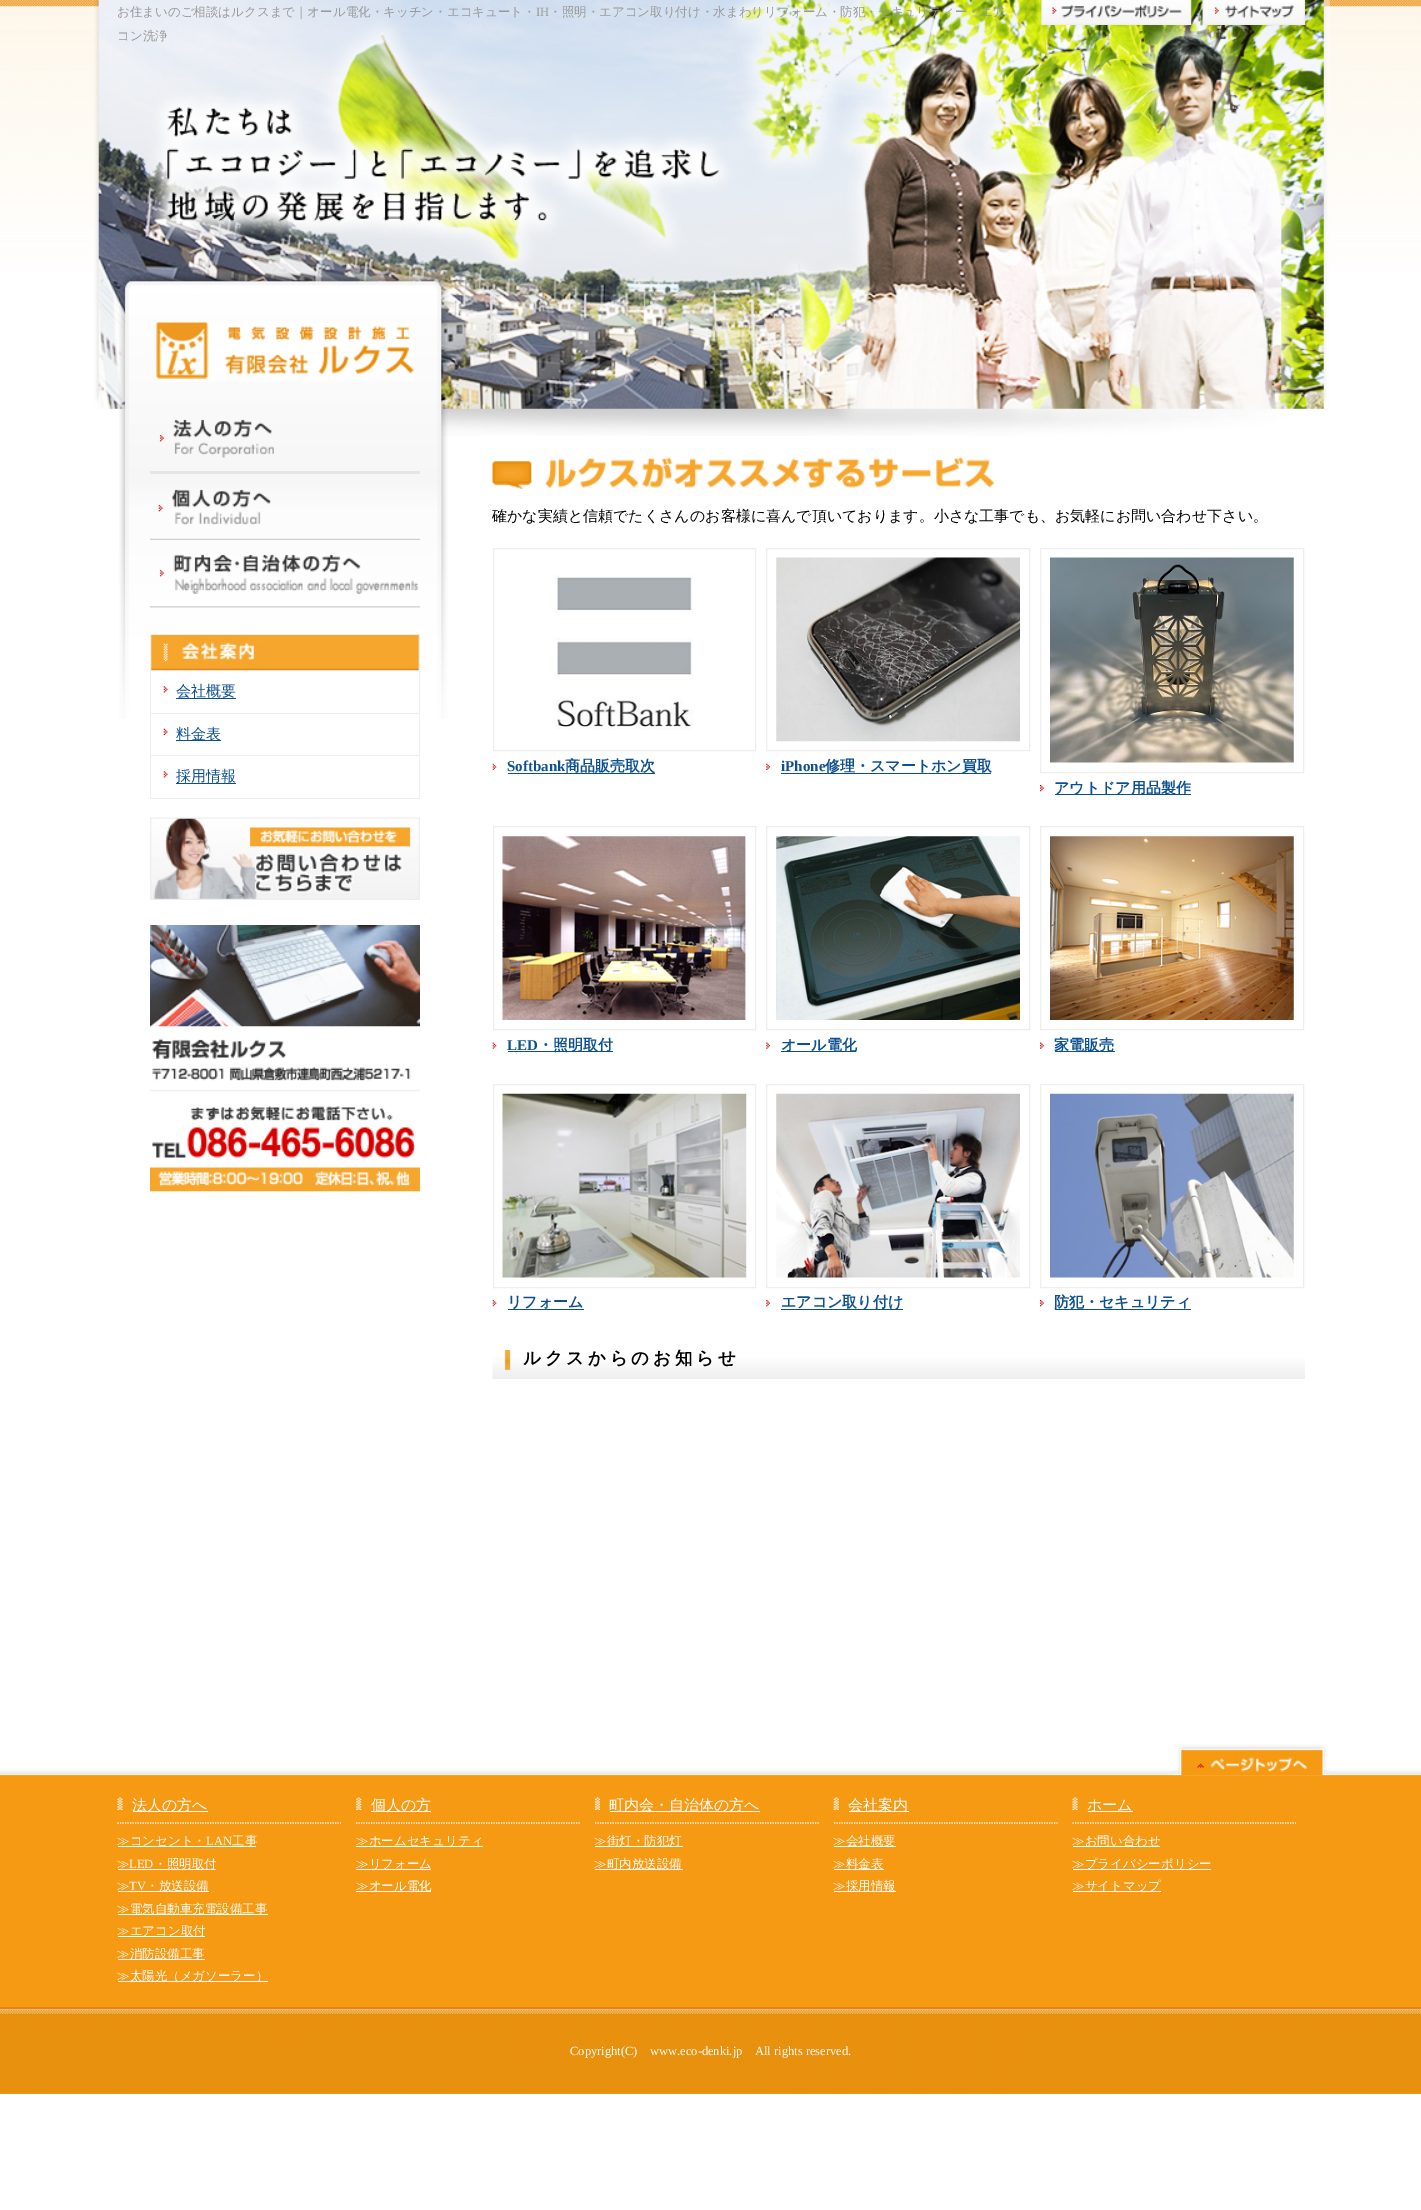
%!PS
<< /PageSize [1421 2210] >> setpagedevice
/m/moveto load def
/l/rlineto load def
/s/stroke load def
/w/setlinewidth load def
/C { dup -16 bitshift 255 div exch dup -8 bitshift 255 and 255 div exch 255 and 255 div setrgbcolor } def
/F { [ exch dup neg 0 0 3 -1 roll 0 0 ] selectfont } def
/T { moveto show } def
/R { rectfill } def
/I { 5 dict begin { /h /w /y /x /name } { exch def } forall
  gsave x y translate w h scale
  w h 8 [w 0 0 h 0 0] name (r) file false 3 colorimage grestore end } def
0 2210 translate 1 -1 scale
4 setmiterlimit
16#FFFFFF C
0 0 1421 2210 R
(1.rgb) 0 0 1421 266 I
(2.rgb) 93 0 1237 436 I
/WenQuanYiZenHei-Medium 12.5 F
16#999999 C
(お住まいのご相談はルクスまで｜オール電化・キッチン・エコキュート・) 117 16 T
/LiberationSerif-Regular 12.5 F
(IH) 536 16 T
/WenQuanYiZenHei-Medium 12.5 F
(・照明・エアコン取り付け・水まわりリフォーム・防犯・セキュリティー・エア) 549 16 T
(コン洗浄) 117 40 T
(3.rgb) 1041 0 151 25 I
(4.rgb) 1202 0 103 25 I
(5.rgb) 119 273 329 446 I
(6.rgb) 156 322 258 60 I
(7.rgb) 159 419 115 39 I
16#E5E5E5 C
150 471 270 3 R
(8.rgb) 158 489 113 36 I
(9.rgb) 150 538 270 2 I
(10.rgb) 159 554 260 40 I
(11.rgb) 150 606 270 2 I
16#EEEEEE C
150 634 270 1 R
419 634 1 165 R
150 634 1 165 R
(12.rgb) 151 635 268 37 I
(13.rgb) 163 686 5 7 I
151 713 268 1 R
16#0C5092 C
176 698 60 1 R
/WenQuanYiZenHei-Medium 15 F
(会社概要) 176 696 T
(14.rgb) 163 728 5 7 I
16#EEEEEE C
151 755 268 1 R
16#0C5092 C
176 740 45 1 R
(料金表) 176 739 T
(13.rgb) 163 771 5 7 I
16#EEEEEE C
151 798 268 1 R
16#0C5092 C
176 783 60 1 R
(採用情報) 176 781 T
(15.rgb) 150 817 270 83 I
(16.rgb) 150 925 270 102 I
(17.rgb) 150 1038 270 54 I
(18.rgb) 150 1106 270 86 I
(19.rgb) 492 457 502 32 I
16#000000 C
(確かな実績と信頼でたくさんのお客様に喜んで頂いております。小さな工事でも、お気軽にお問い合わせ下さい。) 492 521 T
16#EEEEEE C
493.5 548.5 262 202 rectstroke
(20.rgb) 554 575 140 155 I
(21.rgb) 492 763 5 7 I
/LiberationSerif-Bold 15 F
16#0C5092 C
(Softbank) 507 771 T
508 773 147 1 R
/WenQuanYiZenHei-Bold 15 F
(商品販売取次) 565 771 T
16#EEEEEE C
766.5 548.5 263 202 rectstroke
(22.rgb) 776 557 244 185 I
(23.rgb) 766 763 4 7 I
/LiberationSerif-Bold 15 F
16#0C5092 C
(iPhone) 781 771 T
781 773 210 1 R
/WenQuanYiZenHei-Bold 15 F
(修理・スマートホン買取) 825 771 T
16#EEEEEE C
1040.5 548.5 263 224 rectstroke
(24.rgb) 1050 557 244 206 I
(25.rgb) 1040 785 4 7 I
16#0C5092 C
1055 794 136 1 R
(アウトドア用品製作) 1054 793 T
16#EEEEEE C
493.5 826.5 262 203 rectstroke
(26.rgb) 502 836 244 184 I
(27.rgb) 492 1042 5 7 I
/LiberationSerif-Bold 15 F
16#0C5092 C
(LED) 507 1050 T
508 1051 105 1 R
/WenQuanYiZenHei-Bold 15 F
(・照明取付) 538 1050 T
16#EEEEEE C
766.5 826.5 263 203 rectstroke
(28.rgb) 776 836 244 184 I
(29.rgb) 766 1042 4 7 I
16#0C5092 C
781 1051 75 1 R
(オール電化) 781 1050 T
16#EEEEEE C
1040.5 826.5 263 203 rectstroke
(30.rgb) 1050 836 244 184 I
(31.rgb) 1040 1042 4 7 I
16#0C5092 C
1055 1051 60 1 R
(家電販売) 1054 1050 T
16#EEEEEE C
493.5 1084.5 262 203 rectstroke
(32.rgb) 502 1093 245 185 I
(33.rgb) 492 1300 5 7 I
16#0C5092 C
508 1309 76 1 R
(リフォーム) 507 1307 T
16#EEEEEE C
766.5 1084.5 263 203 rectstroke
(34.rgb) 776 1093 244 185 I
(35.rgb) 766 1300 4 7 I
16#0C5092 C
781 1309 122 1 R
(エアコン取り付け) 781 1307 T
16#EEEEEE C
1040.5 1084.5 263 203 rectstroke
(36.rgb) 1050 1093 244 185 I
(25.rgb) 1040 1300 4 7 I
16#0C5092 C
1055 1309 136 1 R
(防犯・セキュリティ) 1054 1307 T
(37.rgb) 492 1350 813 29 I
16#EEEEEE C
493 1378 812 1 R
/WenQuanYiZenHei-Bold 17.5 F
16#000000 C
523 1364 m 3.75 0 (ルクスからのお知らせ) ashow
(38.rgb) 0 1770 1421 324 I
(39.rgb) 1173 1743 157 32 I
(40.rgb) 117 1797 6 13 I
16#FFFFFF C
1.2 w
[1.25 1.25] 0 setdash
117.5 1823 m 223.5 0 l s
133 1811 75 1 R
/WenQuanYiZenHei-Medium 15 F
(法人の方へ) 132 1810 T
118 1846 138 1 R
/WenQuanYiZenHei-Medium 12.5 F
(≫コンセント・) 117 1845 T
/LiberationSerif-Regular 12.5 F
(LAN) 206 1845 T
/WenQuanYiZenHei-Medium 12.5 F
(工事) 232 1845 T
(≫) 117 1868 T
/LiberationSerif-Regular 12.5 F
(LED) 129 1868 T
118 1869 98 1 R
/WenQuanYiZenHei-Medium 12.5 F
(・照明取付) 154 1868 T
(≫) 117 1890 T
118 1891 91 1 R
/LiberationSerif-Regular 12.5 F
(TV) 129 1890 T
/WenQuanYiZenHei-Medium 12.5 F
(・放送設備) 146 1890 T
118 1914 150 1 R
(≫電気自動車充電設備工事) 117 1913 T
118 1936 87 1 R
(≫エアコン取付) 117 1935 T
118 1959 87 1 R
(≫消防設備工事) 117 1958 T
118 1981 150 1 R
(≫太陽光（メガソーラー）) 117 1980 T
(41.rgb) 356 1797 6 13 I
356 1823 m 224 0 l s
371 1811 60 1 R
/WenQuanYiZenHei-Medium 15 F
(個人の方) 371 1810 T
356 1846 127 1 R
/WenQuanYiZenHei-Medium 12.5 F
(≫ホームセキュリティ) 356 1845 T
356 1869 75 1 R
(≫リフォーム) 356 1868 T
356 1891 75 1 R
(≫オール電化) 356 1890 T
(42.rgb) 595 1797 5 13 I
595 1823 m 224 0 l s
610 1811 150 1 R
/WenQuanYiZenHei-Medium 15 F
(町内会・自治体の方へ) 609 1810 T
595 1846 88 1 R
/WenQuanYiZenHei-Medium 12.5 F
(≫街灯・防犯灯) 594 1845 T
595 1869 88 1 R
(≫町内放送設備) 594 1868 T
(43.rgb) 833 1797 6 13 I
834 1823 m 223.5 0 l s
849 1811 60 1 R
/WenQuanYiZenHei-Medium 15 F
(会社案内) 848 1810 T
834 1846 62 1 R
/WenQuanYiZenHei-Medium 12.5 F
(≫会社概要) 833 1845 T
834 1869 50 1 R
(≫料金表) 833 1868 T
834 1891 62 1 R
(≫採用情報) 833 1890 T
(40.rgb) 1072 1797 6 13 I
1072.5 1823 m 223.5 0 l s
1088 1811 45 1 R
/WenQuanYiZenHei-Medium 15 F
(ホーム) 1087 1810 T
1073 1846 87 1 R
/WenQuanYiZenHei-Medium 12.5 F
(≫お問い合わせ) 1072 1845 T
1073 1869 138 1 R
(≫プライバシーポリシー) 1072 1868 T
1073 1891 88 1 R
(≫サイトマップ) 1072 1890 T
(44.rgb) 0 2007 1421 87 I
/LiberationSerif-Regular 12.5 F
(Copyright\(C\)) 570 2055 T
(www.eco-denki.jp) 650 2055 T
(All rights reserved.) 755 2055 T
showpage
